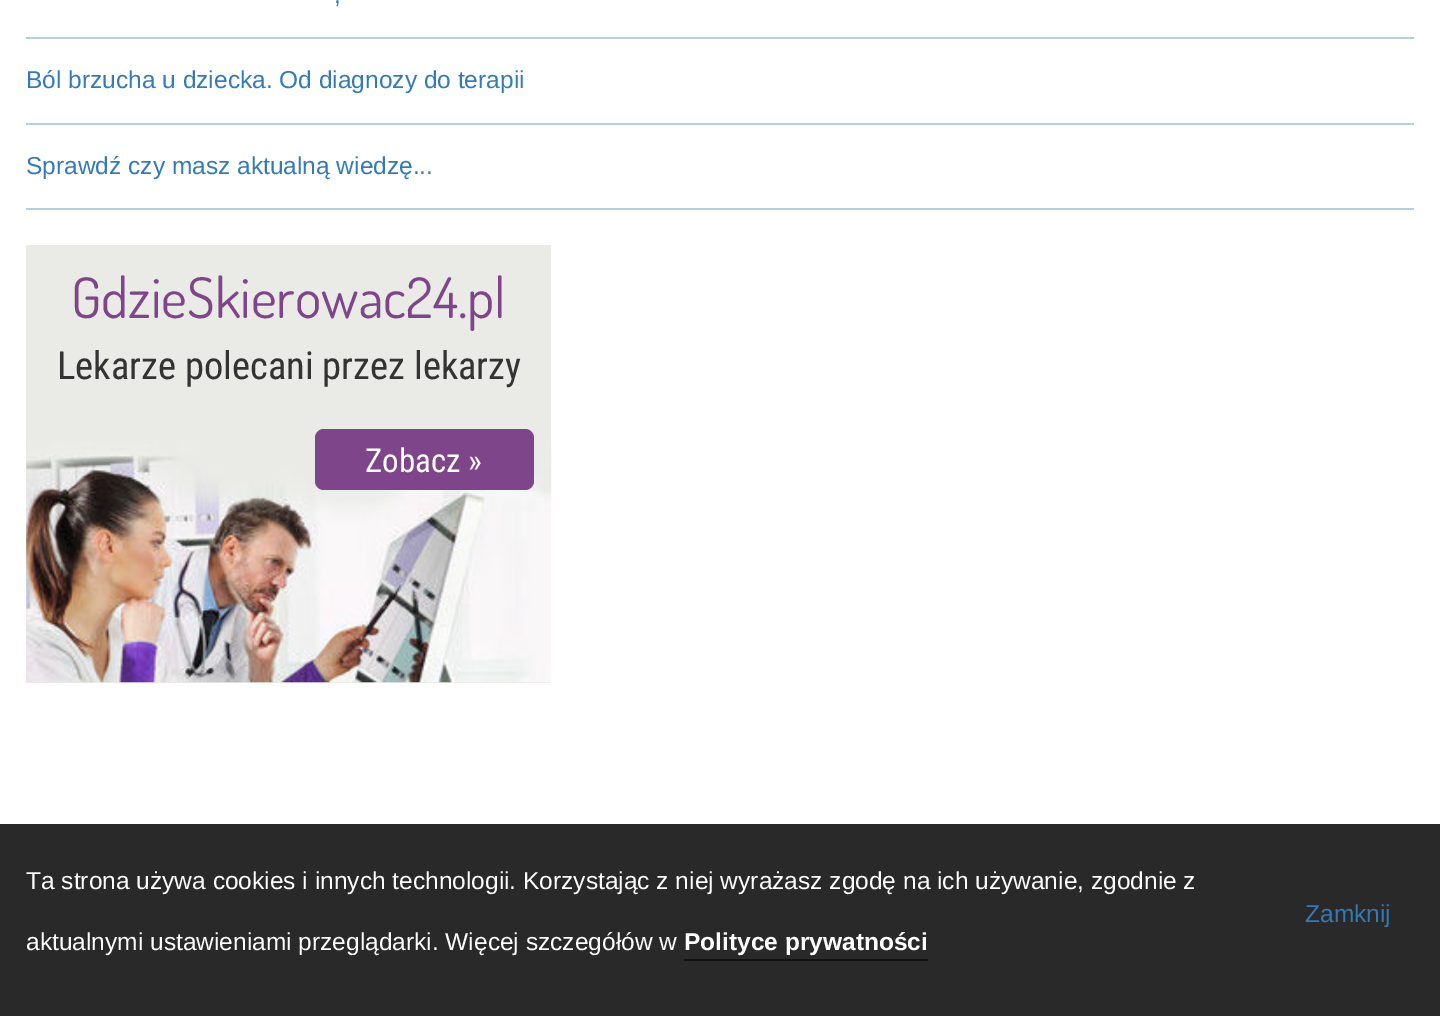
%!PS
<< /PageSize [1440 1016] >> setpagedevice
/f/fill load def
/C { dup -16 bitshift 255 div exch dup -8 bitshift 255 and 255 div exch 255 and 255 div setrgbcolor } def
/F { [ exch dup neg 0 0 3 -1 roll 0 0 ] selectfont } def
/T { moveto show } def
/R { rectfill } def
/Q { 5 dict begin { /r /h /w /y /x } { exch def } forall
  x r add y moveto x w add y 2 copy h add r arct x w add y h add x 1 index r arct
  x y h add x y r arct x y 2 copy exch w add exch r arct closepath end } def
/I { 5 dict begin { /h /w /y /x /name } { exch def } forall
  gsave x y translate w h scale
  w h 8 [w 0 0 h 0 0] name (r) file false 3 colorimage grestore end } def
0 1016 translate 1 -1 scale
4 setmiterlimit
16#FFFFFF C
0 0 1440 1016 R
/LiberationSans-Regular 24.5 F
16#337AB7 C
(,) 334 3 T
16#B6CFDE C
26 37 1388 2 R
16#337AB7 C
(Ból brzucha u dziecka. Od diagnozy do terapii) 26 88 T
16#B6CFDE C
26 123 1388 2 R
26 208 1388 2 R
16#337AB7 C
(Sprawdź czy masz aktualną wiedzę...) 26 174 T
16#EAEBE6 C
26 245 525 438 R
(1.rgb) 26 441 526 242 I
/Dosis-Regular 56 F
16#7E458A C
(GdzieSkierowac24.pl) 71 318 T
/RobotoCondensed-Regular 38.5 F
16#333333 C
(Lekarze polecani przez lekarzy) 57 379 T
16#7E458A C
315 429 219 61 9 Q f
/RobotoCondensed-Regular 33 F
16#FFFFFF C
(Zobacz ») 365 472 T
16#292929 C
0 824 1440 192 R
/LiberationSans-Regular 24.5 F
16#FFFFFF C
(Ta strona używa cookies i innych technologii. Korzystając z niej wyrażasz zgodę na ich używanie, zgodnie z) 26 889 T
(aktualnymi ustawieniami przeglądarki. Więcej szczegółów w) 26 950 T
/LiberationSans-Bold 24.5 F
(Polityce prywatności) 684 950 T
16#131313 C
684 959 244 2 R
/LiberationSans-Regular 24.5 F
16#337AB7 C
(Zamknij) 1305 922 T
showpage
